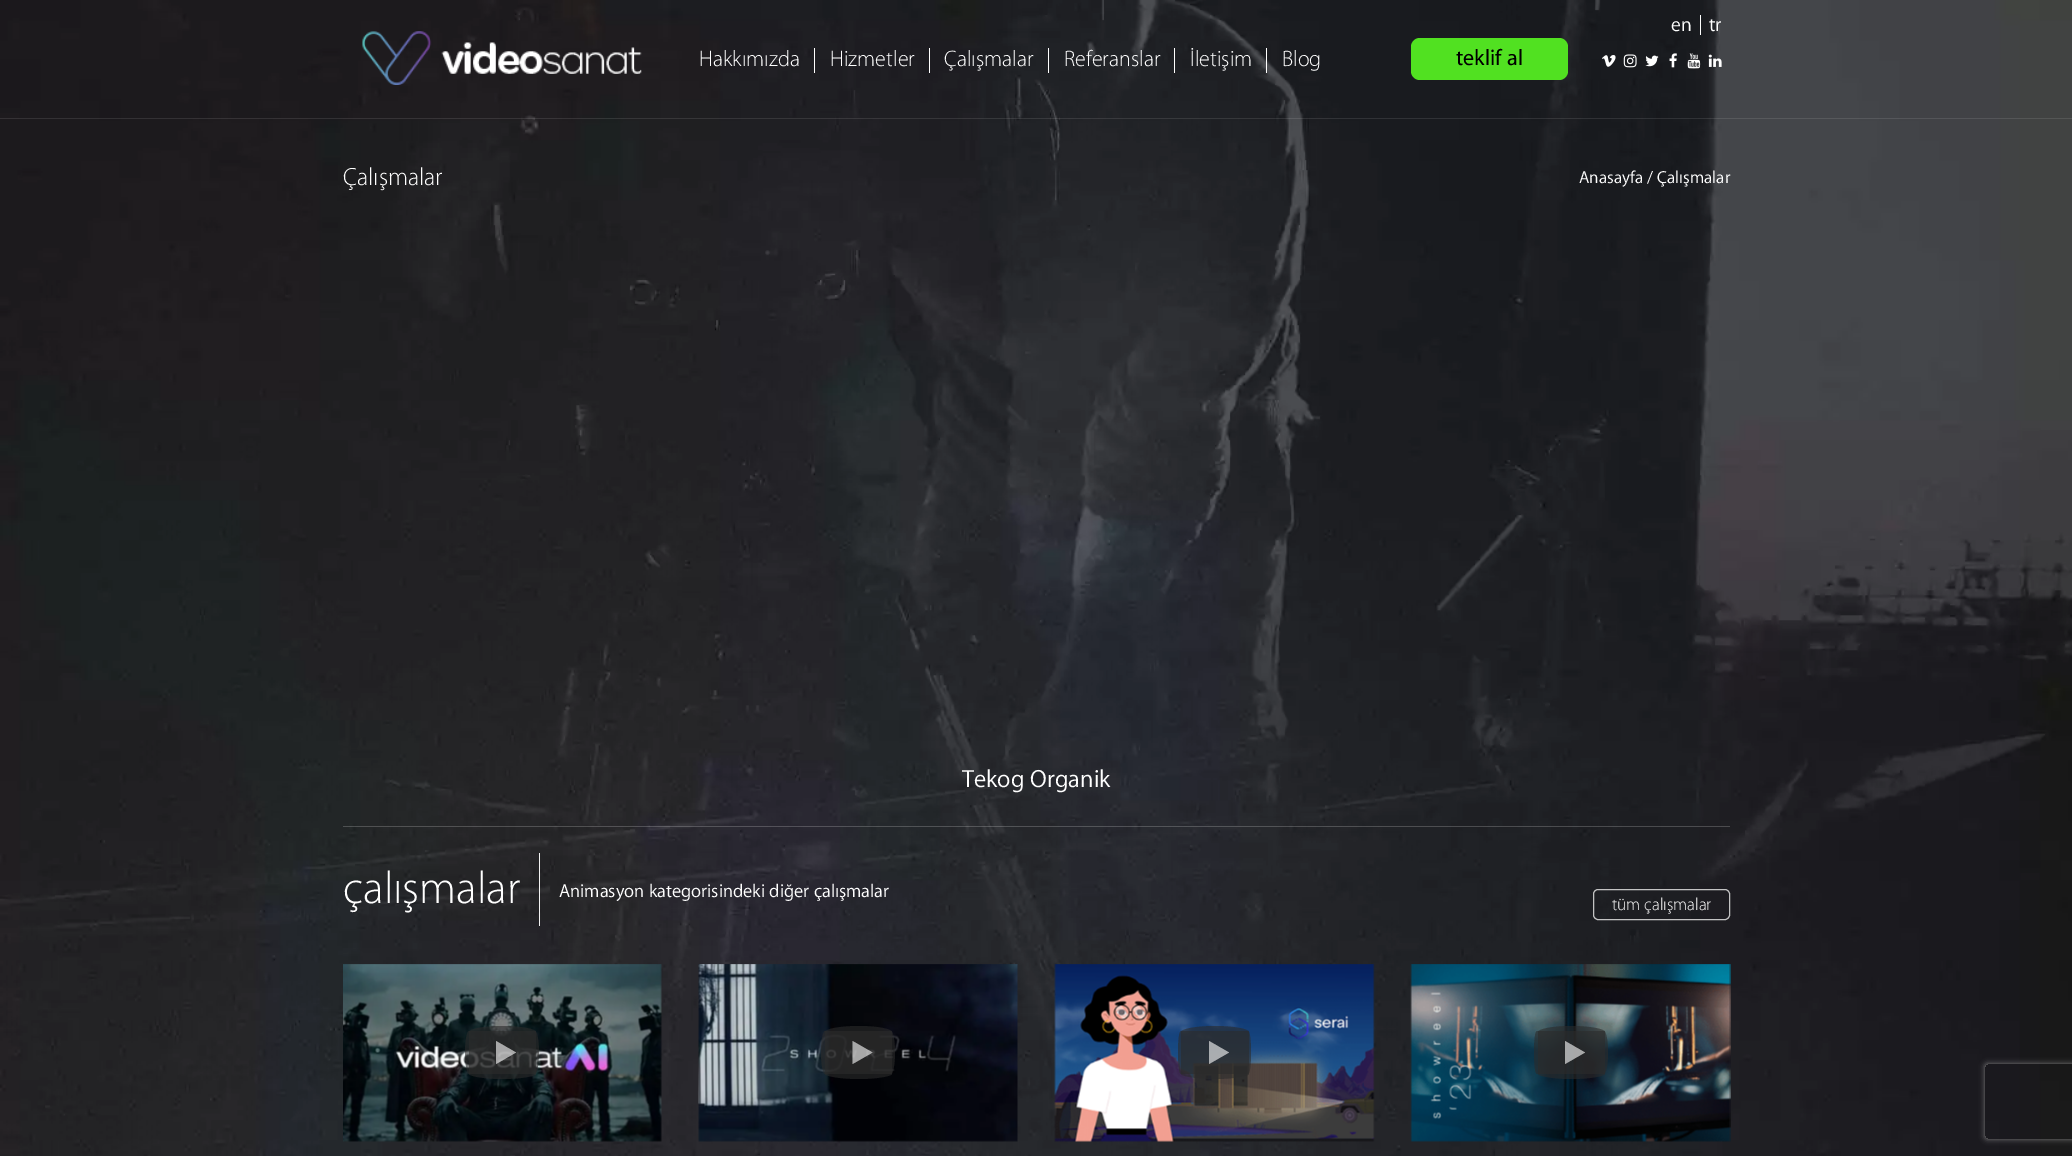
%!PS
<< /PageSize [2072 1156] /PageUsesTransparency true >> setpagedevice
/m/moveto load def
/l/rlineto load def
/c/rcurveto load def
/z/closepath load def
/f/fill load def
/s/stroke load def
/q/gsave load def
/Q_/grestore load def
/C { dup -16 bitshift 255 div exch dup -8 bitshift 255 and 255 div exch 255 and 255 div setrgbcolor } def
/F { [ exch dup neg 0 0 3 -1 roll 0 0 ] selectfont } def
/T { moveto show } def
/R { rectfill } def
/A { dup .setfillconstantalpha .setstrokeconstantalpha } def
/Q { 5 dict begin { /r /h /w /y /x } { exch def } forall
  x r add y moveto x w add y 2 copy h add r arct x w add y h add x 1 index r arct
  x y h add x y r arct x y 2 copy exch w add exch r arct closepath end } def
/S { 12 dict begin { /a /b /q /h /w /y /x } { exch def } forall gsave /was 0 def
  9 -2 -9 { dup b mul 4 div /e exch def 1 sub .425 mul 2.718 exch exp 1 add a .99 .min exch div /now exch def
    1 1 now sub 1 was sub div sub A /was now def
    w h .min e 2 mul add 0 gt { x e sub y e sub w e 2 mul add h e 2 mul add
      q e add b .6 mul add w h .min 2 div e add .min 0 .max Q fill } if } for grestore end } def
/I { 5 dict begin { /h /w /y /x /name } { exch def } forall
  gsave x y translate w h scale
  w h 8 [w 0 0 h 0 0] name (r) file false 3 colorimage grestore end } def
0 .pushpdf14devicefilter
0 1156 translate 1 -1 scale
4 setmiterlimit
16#FFFFFF C
0 0 2072 1156 R
(8.rgb) 0 0 2072 1156 I
0.1 A
0 118 2072 1 R
1 A
(1.rgb) 362 31 280 54 I
/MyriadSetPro-Thin 22.5 F
(Hakkımızda) 699 66 T
814 48 1 25 R
(Hizmetler) 830 66 T
929 48 1 25 R
(Çalışmalar) 944 66 T
1048 48 1 25 R
(Referanslar) 1064 66 T
1174 48 1 25 R
(İletişim) 1190 66 T
1266 48 1 25 R
(Blog) 1282 66 T
/MyriadSetPro-Regular 20 F
(en) 1671 31 T
1700 15 1 20 R
(tr) 1709 31 T
16#51E121 C
1411 38 157 42 9 Q f
/MyriadSetPro-Medium 22.5 F
16#000000 C
(teklif al) 1456 65 T
(2.rgb) 1602 55 14 12 I
(3.rgb) 1623 54 14 14 I
(4.rgb) 1645 55 14 12 I
(5.rgb) 1669 53 8 15 I
(6.rgb) 1687 53 14 16 I
(7.rgb) 1708 54 14 13 I
/MyriadSetPro-Thin 25 F
16#FFFFFF C
(Çalışmalar) 343 185 T
/MyriadSetPro-Regular 17.5 F
(Anasayfa / Çalışmalar) 1579 183 T
/MyriadSetPro-Regular 25 F
(Tekog Organik) 962 787 T
0.2 A
343 826 1387 1 R
1 A
16#F2F2F2 C
539 853 1 73 R
/MyriadSetPro-Thin 46 F
16#FFFFFF C
(çalışmalar) 343 903 T
/MyriadSetPro-Regular 18.75 F
(Animasyon kategorisindeki diğer çalışmalar) 559 897 T
16#C3C3C3 C
1593.5 889.5 136 30 4.5 Q s
/MyriadSetPro-Thin 17.5 F
16#FFFFFF C
(tüm çalışmalar) 1612 910 T
(9.rgb) 343 964 319 178 I
0.6 A
16#2B2B2B C
502 1026 m 19 0 34 3 34 6 c 0 42 l 0 2 -15 5 -34 5 c -18 0 -33 -3 -33 -5 c 0 -42 l 0 -3 15 -6 33 -6 c z f
469 1031 m 66 0 l 2 0 4 10 4 21 c 0 12 -2 22 -4 22 c -66 0 l -2 0 -4 -10 -4 -22 c 0 -11 2 -21 4 -21 c z f
16#FFFFFF C
496 1064 m 0 -23 l 20 11.5 l z f
1 A
(10.rgb) 698 964 320 178 I
0.6 A
16#2B2B2B C
859 1026 m 18 0 33 3 33 6 c 0 42 l 0 2 -15 5 -33 5 c -19 0 -34 -3 -34 -5 c 0 -42 l 0 -3 15 -6 34 -6 c z f
825 1031 m 66 0 l 2 0 4 10 4 21 c 0 12 -2 22 -4 22 c -66 0 l -2 0 -4 -10 -4 -22 c 0 -11 2 -21 4 -21 c z f
16#FFFFFF C
852.5 1064 m 0 -23 l 20 11.5 l z f
1 A
(11.rgb) 1054 964 321 178 I
0.6 A
16#2B2B2B C
1215 1026 m 19 0 34 3 34 6 c 0 42 l 0 2 -15 5 -34 5 c -19 0 -34 -3 -34 -5 c 0 -42 l 0 -3 15 -6 34 -6 c z f
1181 1031 m 67 0 l 2 0 3 10 3 21 c 0 12 -1 22 -3 22 c -67 0 l -2 0 -3 -10 -3 -22 c 0 -11 1 -21 3 -21 c z f
16#FFFFFF C
1209 1064 m 0 -23 l 20 11.5 l z f
1 A
(12.rgb) 1410 964 321 178 I
0.6 A
16#2B2B2B C
1571 1026 m 19 0 34 3 34 6 c 0 42 l 0 2 -15 5 -34 5 c -18 0 -33 -3 -33 -5 c 0 -42 l 0 -3 15 -6 33 -6 c z f
1537 1031 m 67 0 l 2 0 4 10 4 21 c 0 12 -2 22 -4 22 c -67 0 l -2 0 -3 -10 -3 -22 c 0 -11 1 -21 3 -21 c z f
16#FFFFFF C
1565 1064 m 0 -23 l 20 11.5 l z f
q
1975 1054 m 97 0 l 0 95 l -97 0 l z 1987.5 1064 m 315 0 l 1.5 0 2.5 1 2.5 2.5 c 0 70 l 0 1.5 -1 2.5 -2.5 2.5 c -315 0 l -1.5 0 -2.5 -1 -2.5 -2.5 c 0 -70 l 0 -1.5 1 -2.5 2.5 -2.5 c z eoclip newpath
1 A
16#808080 C
1985 1064 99 75 2.5 3 1 S
Q_
.poppdf14devicefilter showpage
